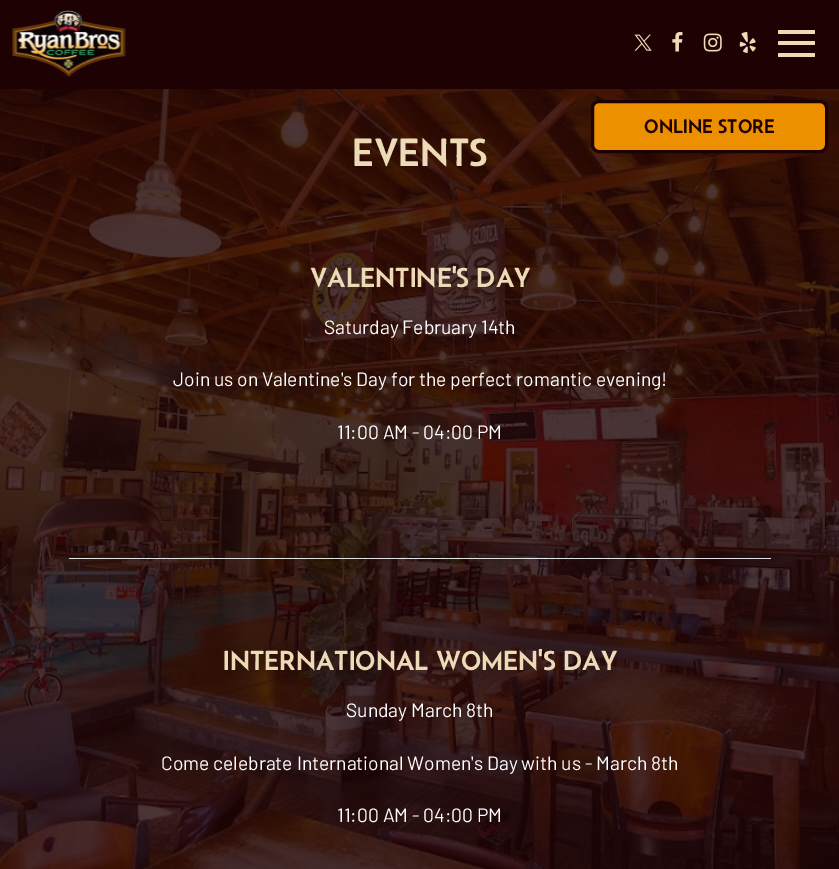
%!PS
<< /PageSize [839 869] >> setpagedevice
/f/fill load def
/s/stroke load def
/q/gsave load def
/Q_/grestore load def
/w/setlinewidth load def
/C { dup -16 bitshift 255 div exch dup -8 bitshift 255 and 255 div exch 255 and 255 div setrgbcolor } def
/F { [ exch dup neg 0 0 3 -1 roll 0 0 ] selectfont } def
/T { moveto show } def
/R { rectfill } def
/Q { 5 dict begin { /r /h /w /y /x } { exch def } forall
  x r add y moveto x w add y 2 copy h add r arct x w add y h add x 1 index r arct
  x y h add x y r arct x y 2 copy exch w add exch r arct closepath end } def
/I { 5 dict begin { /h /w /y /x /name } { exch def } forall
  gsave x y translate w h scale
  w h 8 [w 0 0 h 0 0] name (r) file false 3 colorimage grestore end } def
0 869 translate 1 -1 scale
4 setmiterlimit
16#FFFFFF C
0 0 839 869 R
(1.rgb) 0 89 839 780 I
16#1E0203 C
0 0 839 89 R
(2.rgb) 12 10 114 67 I
(3.rgb) 634 34 18 17 I
(4.rgb) 672 32 11 20 I
(5.rgb) 703 33 19 19 I
(6.rgb) 739 32 17 21 I
16#EDDBB7 C
778 30 37 4 1 Q f
778 41 37 4 1 Q f
778 53 37 4 1 Q f
16#EC9000 C
592.5 101.5 234 50 6.5 Q q f Q_
16#1E0203 C
3 w
s
/Belanosima-Regular 20 F
(ONLINE STORE) 644 133 T
/Belanosima-Regular 40 F
16#EDDBB7 C
(EVENTS) 352 166 T
16#E2E2E2 C
69 558 702 1 R
/Belanosima-Regular 28 F
16#EDDBB7 C
(VALENTINE'S DAY) 310 287 T
/Barlow-Regular 19.25 F
16#FFFFFF C
(Saturday February 14th) 324 334 T
(Join us on Valentine's Day for the perfect romantic evening!) 173 386 T
(11:00 AM - 04:00 PM) 337 439 T
/Belanosima-Regular 28 F
16#EDDBB7 C
(INTERNATIONAL WOMEN'S DAY) 223 670 T
/Barlow-Regular 19.25 F
16#FFFFFF C
(Sunday March 8th) 346 717 T
(Come celebrate International Women's Day with us - March 8th) 161 770 T
(11:00 AM - 04:00 PM) 337 822 T
showpage
